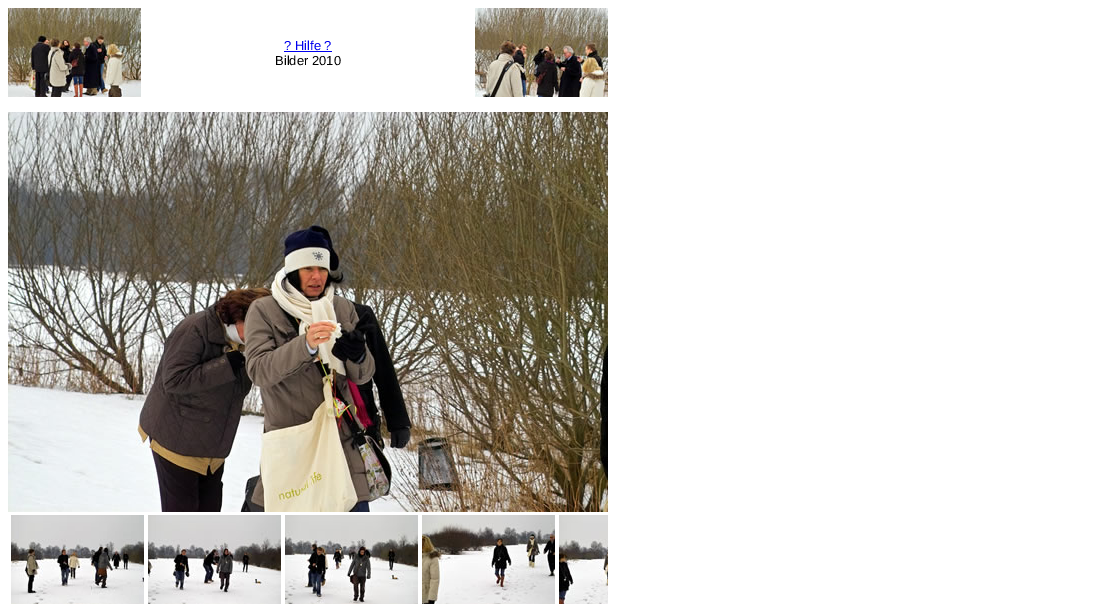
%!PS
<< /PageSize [1099 615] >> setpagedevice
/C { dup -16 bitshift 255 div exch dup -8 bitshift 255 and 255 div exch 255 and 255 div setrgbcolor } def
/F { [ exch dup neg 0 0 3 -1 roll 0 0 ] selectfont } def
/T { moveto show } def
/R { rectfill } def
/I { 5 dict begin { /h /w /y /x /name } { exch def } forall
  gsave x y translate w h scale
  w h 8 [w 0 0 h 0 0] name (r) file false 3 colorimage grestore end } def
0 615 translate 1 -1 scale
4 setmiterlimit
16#FFFFFF C
0 0 1099 615 R
(1.rgb) 8 8 133 89 I
/LiberationSans-Regular 13 F
16#0000EE C
(? Hilfe ?) 284 50 T
284 51 48 1 R
16#000000 C
(Bilder 2010) 275 65 T
(2.rgb) 475 8 133 89 I
(3.rgb) 8 112 600 400 I
(4.rgb) 11 515 133 89 I
(5.rgb) 148 515 133 89 I
(6.rgb) 285 515 133 89 I
(7.rgb) 422 515 133 89 I
(8.rgb) 559 515 49 89 I
showpage
